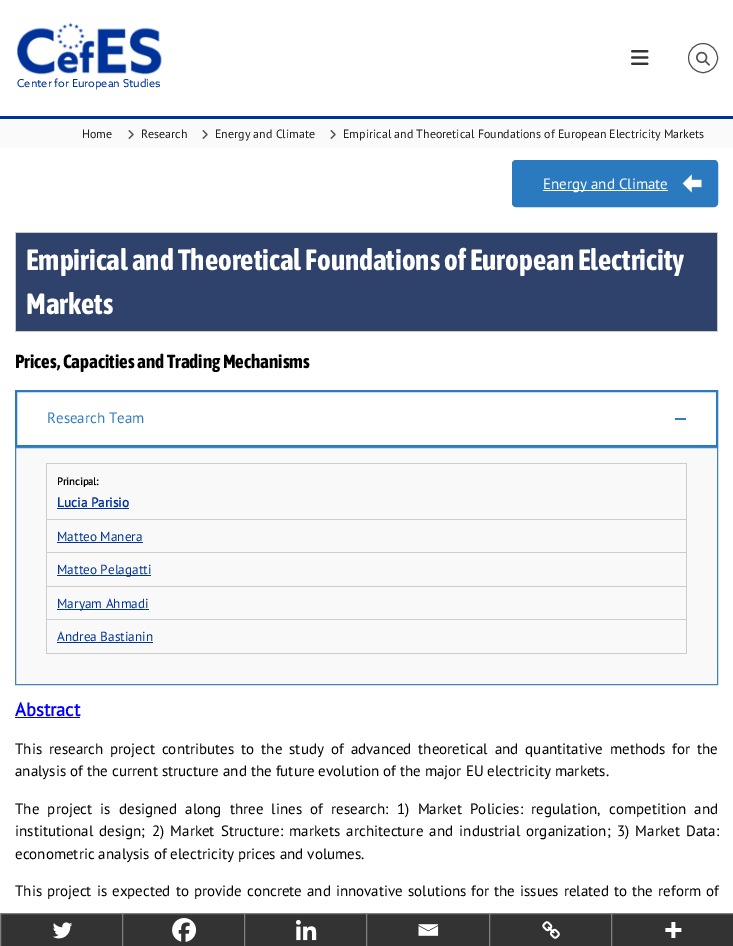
%!PS
<< /PageSize [733 946] >> setpagedevice
/m/moveto load def
/l/rlineto load def
/z/closepath load def
/f/fill load def
/s/stroke load def
/q/gsave load def
/Q_/grestore load def
/w/setlinewidth load def
/C { dup -16 bitshift 255 div exch dup -8 bitshift 255 and 255 div exch 255 and 255 div setrgbcolor } def
/F { [ exch dup neg 0 0 3 -1 roll 0 0 ] selectfont } def
/T { moveto show } def
/R { rectfill } def
/O { newpath 0 360 arc closepath } def
/Q { 5 dict begin { /r /h /w /y /x } { exch def } forall
  x r add y moveto x w add y 2 copy h add r arct x w add y h add x 1 index r arct
  x y h add x y r arct x y 2 copy exch w add exch r arct closepath end } def
/I { 5 dict begin { /h /w /y /x /name } { exch def } forall
  gsave x y translate w h scale
  w h 8 [w 0 0 h 0 0] name (r) file false 3 colorimage grestore end } def
0 946 translate 1 -1 scale
4 setmiterlimit
16#FFFFFF C
0 0 733 946 R
(1.rgb) 631 50 18 15 I
16#525252 C
703 58 14.5 O s
(2.rgb) 696 51 14 15 I
(3.rgb) 16 22 146 53 I
/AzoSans-Regular 11 F
16#003399 C
(Center for European Studies) 17 87 T
0 116 733 3 R
16#FAFAFA C
0 119 733 29 R
/PTSans-Regular 12 F
16#202020 C
(Home) 82 138 T
(4.rgb) 128 130 6 9 I
(Research) 141 138 T
(4.rgb) 202 130 6 9 I
(Energy and Climate) 215 138 T
(4.rgb) 330 130 6 9 I
(Empirical and Theoretical Foundations of European Electricity Markets) 343 138 T
16#2B7ABF C
512.5 160.5 205 46 3.5 Q q f Q_
s
16#FFFFFF C
543 190 125 1 R
/PTSans-Regular 15 F
(Energy and Climate) 543 189 T
(5.rgb) 682 174 20 19 I
16#2E426B C
16 233 701 98 R
16#CCCCCC C
15 232 703 1 R
717 232 1 100 R
15 331 703 1 R
15 232 1 100 R
/AsapCondensed-Bold 29.3 F
16#FFFFFF C
(Empirical and Theoretical Foundations of European Electricity) 26 270 T
(Markets) 26 314 T
/AsapCondensed-Bold 19 F
16#000000 C
(Prices, Capacities and Trading Mechanisms) 15 368 T
16#2B7ABF C
2 w
16 391 701 55 rectstroke
/PTSans-Regular 15 F
16#337EBF C
(Research Team) 47 423 T
675 418 11 2 R
16#F9F9F9 C
15.5 447.5 m 702 0 l 0 237 l -702 0 l z q f Q_
16#4184BF C
1 w
s
16#CCCCCC C
46 463 641 1 R
46 519 641 1 R
46 552 641 1 R
46 586 641 1 R
46 619 641 1 R
686 619 1 35 R
686 586 1 34 R
686 552 1 35 R
686 519 1 34 R
686 463 1 57 R
46 653 641 1 R
46 619 1 35 R
46 586 1 34 R
46 552 1 35 R
46 519 1 34 R
46 463 1 57 R
/PTSans-Bold 10.5 F
16#000000 C
(Principal:) 57 485 T
/PTSans-Bold 13.25 F
16#003399 C
(Lucia Parisio) 57 507 T
57 508 72 1 R
/PTSans-Regular 13.25 F
(Matteo Manera) 57 541 T
57 542 86 1 R
57 575 94 1 R
(Matteo Pelagatti) 57 574 T
57 609 92 1 R
(Maryam Ahmadi) 57 608 T
(Andrea Bastianin) 57 641 T
57 642 96 1 R
/PTSans-Bold 18.5 F
16#0000FF C
(Abstract) 15 716 T
15 717 65 1 R
/PTSans-Regular 15 F
16#000000 C
15 754 m 3 0 32 (This research project contributes to the study of advanced theoretical and quantitative methods for the) widthshow
(analysis of the current structure and the future evolution of the major EU electricity markets.) 15 776 T
15 814 m 4.25 0 32 (The project is designed along three lines of research: 1\) Market Policies: regulation, competition and) widthshow
15 836 m 2.25 0 32 (institutional design; 2\) Market Structure: markets architecture and industrial organization; 3\) Market Data:) widthshow
(econometric analysis of electricity prices and volumes.) 15 859 T
15 896 m 1 0 32 (This project is expected to provide concrete and innovative solutions for the issues related to the reform of) widthshow
16#333333 C
1 914 121 32 R
16#808080 C
.5 913.5 123 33 rectstroke
(6.rgb) 52 922 21 17 I
16#333333 C
123 914 121 32 R
16#808080 C
122.5 913.5 123 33 rectstroke
(7.rgb) 172 918 25 24 I
16#333333 C
245 914 121 32 R
16#808080 C
244.5 913.5 123 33 rectstroke
(8.rgb) 296 919 21 22 I
16#333333 C
367 914 122 32 R
16#808080 C
366.5 913.5 124 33 rectstroke
(9.rgb) 418 924 21 12 I
16#333333 C
490 914 121 32 R
16#808080 C
489.5 913.5 123 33 rectstroke
(10.rgb) 542 921 18 18 I
16#333333 C
611.5 913.5 m 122 0 l 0 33 l -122 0 l z q f Q_
16#808080 C
s
(11.rgb) 665 922 17 16 I
showpage
